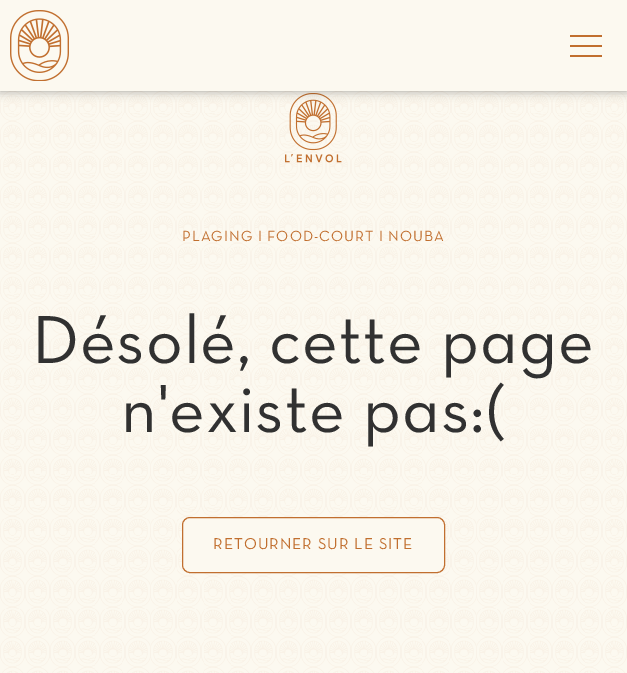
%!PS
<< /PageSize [627 673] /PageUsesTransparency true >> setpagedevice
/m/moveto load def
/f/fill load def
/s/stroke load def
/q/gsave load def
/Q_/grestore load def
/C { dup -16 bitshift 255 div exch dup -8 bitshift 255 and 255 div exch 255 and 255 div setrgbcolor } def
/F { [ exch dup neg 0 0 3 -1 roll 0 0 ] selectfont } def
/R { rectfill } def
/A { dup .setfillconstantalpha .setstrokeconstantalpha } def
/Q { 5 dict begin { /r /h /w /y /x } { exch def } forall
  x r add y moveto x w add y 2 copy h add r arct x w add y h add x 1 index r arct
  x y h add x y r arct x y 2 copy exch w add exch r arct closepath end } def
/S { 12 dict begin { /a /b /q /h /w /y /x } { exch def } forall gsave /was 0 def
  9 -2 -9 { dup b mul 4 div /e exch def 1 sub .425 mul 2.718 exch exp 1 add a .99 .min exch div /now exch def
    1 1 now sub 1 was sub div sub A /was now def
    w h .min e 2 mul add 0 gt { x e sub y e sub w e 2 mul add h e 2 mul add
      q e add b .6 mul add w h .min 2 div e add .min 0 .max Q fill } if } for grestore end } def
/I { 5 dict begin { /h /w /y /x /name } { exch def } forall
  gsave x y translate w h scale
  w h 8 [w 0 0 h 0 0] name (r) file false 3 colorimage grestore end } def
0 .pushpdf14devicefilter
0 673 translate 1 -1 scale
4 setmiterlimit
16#FCF9F0 C
0 0 627 673 R
(2.rgb) 0 91 627 582 I
(3.rgb) 285 93 57 70 I
16#000000 C
0 0 627 91 0 5 .35 S
16#FCF9F0 C
0 0 627 91 R
(1.rgb) 10 10 59 71 I
16#C16F2F C
570 45 32 2 R
570 35 32 2 R
570 55 32 2 R
/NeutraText-Regular 15 F
182 241 m 1 0 (PLAGING I FOOD-COURT I NOUBA) ashow
/NeutraText-Regular 69 F
16#313131 C
32 363 m 1 0 (Désolé, cette page) ashow
121 432 m 1 0 (n'existe pas:\() ashow
16#FCF9F0 C
182.5 517.5 262 55 7.5 Q q f Q_
16#C16F2F C
s
/NeutraText-Regular 16 F
213 549 m 1 0 (RETOURNER SUR LE SITE) ashow
.poppdf14devicefilter showpage
